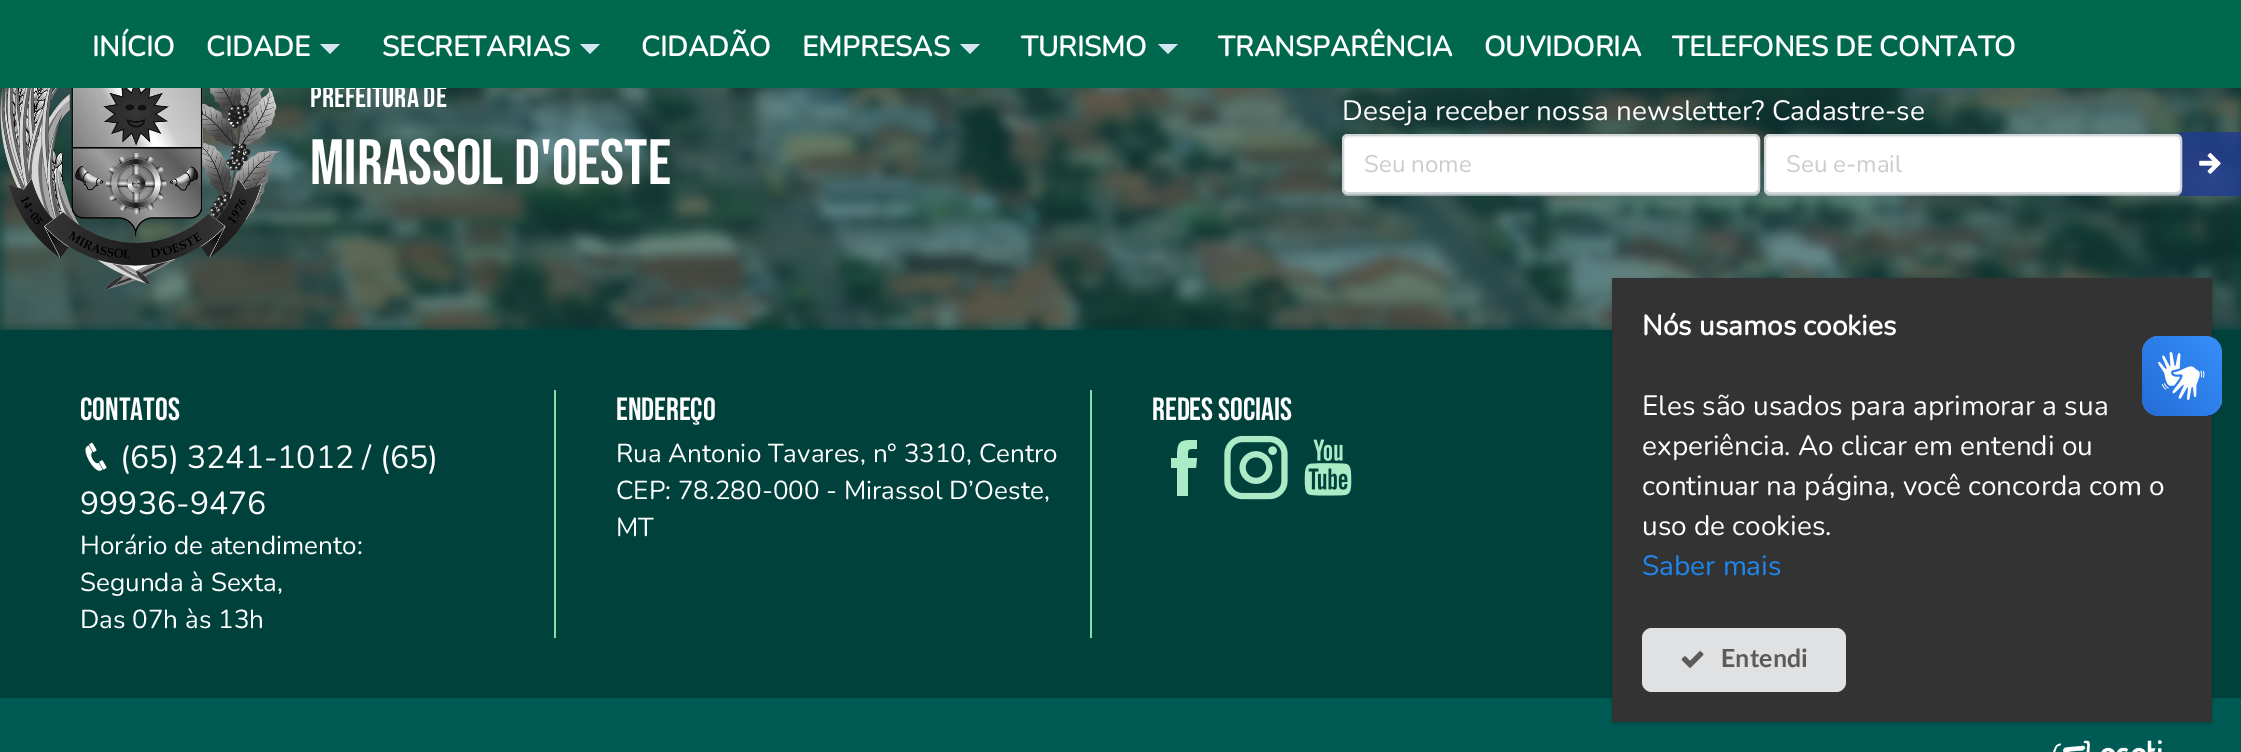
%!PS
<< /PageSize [2241 752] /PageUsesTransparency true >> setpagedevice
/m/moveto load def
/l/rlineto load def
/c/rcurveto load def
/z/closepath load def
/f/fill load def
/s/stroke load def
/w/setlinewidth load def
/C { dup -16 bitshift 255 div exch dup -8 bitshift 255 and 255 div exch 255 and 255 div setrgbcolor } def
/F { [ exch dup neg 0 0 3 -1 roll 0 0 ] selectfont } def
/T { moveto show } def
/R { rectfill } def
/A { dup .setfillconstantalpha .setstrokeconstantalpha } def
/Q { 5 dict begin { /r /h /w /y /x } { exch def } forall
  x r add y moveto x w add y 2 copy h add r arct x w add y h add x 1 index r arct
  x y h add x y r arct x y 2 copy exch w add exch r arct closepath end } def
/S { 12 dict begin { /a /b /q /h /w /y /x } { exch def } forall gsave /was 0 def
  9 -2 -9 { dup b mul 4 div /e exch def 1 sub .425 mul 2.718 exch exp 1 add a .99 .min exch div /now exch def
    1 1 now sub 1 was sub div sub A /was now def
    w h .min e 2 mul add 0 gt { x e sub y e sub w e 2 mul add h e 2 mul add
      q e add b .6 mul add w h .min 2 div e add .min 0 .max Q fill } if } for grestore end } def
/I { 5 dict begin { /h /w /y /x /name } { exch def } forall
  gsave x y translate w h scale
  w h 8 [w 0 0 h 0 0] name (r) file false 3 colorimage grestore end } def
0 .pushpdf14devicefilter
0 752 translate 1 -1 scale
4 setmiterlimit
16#00413C C
0 0 2241 752 R
(3.rgb) 0 88 2241 242 I
/BebasNeue-Regular 30 F
16#FFFFFF C
(Prefeitura de) 310 107 T
16#00684C C
0 0 2241 88 R
/Nunito-Bold 28 F
16#FFFFFF C
(INÍCIO) 92 56 T
(CIDADE) 206 56 T
16#D4E6F1 C
320 44 m 20 0 l -10 10 l z f
16#FFFFFF C
(SECRETARIAS) 382 56 T
16#D4E6F1 C
580 44 m 20 0 l -10 10 l z f
16#FFFFFF C
(CIDADÃO) 641 56 T
(EMPRESAS) 802 56 T
16#D4E6F1 C
960 44 m 20 0 l -10 10 l z f
16#FFFFFF C
(TURISMO) 1021 56 T
16#D4E6F1 C
1158 44 m 20 0 l -10 10 l z f
16#FFFFFF C
(TRANSPARÊNCIA) 1218 56 T
(OUVIDORIA) 1484 56 T
(TELEFONES DE CONTATO) 1672 56 T
(1.rgb) 0 88 280 202 I
/BebasNeue-Regular 64 F
(Mirassol D'Oeste) 310 184 T
/Nunito-ExtraLight 28 F
(Deseja receber nossa newsletter? Cadastre-se) 1342 120 T
0.5 A
1342 188 m 0 2 l 0 3 3 6 6 6 c 406 0 l 3 0 6 -3 6 -6 c 0 -2 l 0 3 -3 6 -6 6 c -406 0 l -3 0 -6 -3 -6 -6 c z f
1 A
1342 134 418 60 6 Q f
16#F4F5F6 C
1348 138 m 406 0 l 2 0 4 2 4 4 c 0 -3 0 -6 -4 -6 c -406 0 l -4 0 -4 3 -4 6 c 0 -2 2 -4 4 -4 c z f
16#D1D6D9 C
2 w
1343 135 416 58 5 Q s
/Nunito-ExtraLight 24 F
16#CCCCCC C
(Seu nome) 1364 172 T
0.8 A
16#1F3A93 C
2178 132 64 64 4 Q f
0.5 A
16#FFFFFF C
1764 188 m 0 2 l 0 3 3 6 6 6 c 406 0 l 3 0 6 -3 6 -6 c 0 -2 l 0 3 -3 6 -6 6 c -406 0 l -3 0 -6 -3 -6 -6 c z f
1 A
1764 134 418 60 6 Q f
16#F4F5F6 C
1770 138 m 406 0 l 2 0 4 2 4 4 c 0 -3 0 -6 -4 -6 c -406 0 l -4 0 -4 3 -4 6 c 0 -2 2 -4 4 -4 c z f
16#D1D6D9 C
1765 135 416 58 5 Q s
16#CCCCCC C
(Seu e-mail) 1786 172 T
(2.rgb) 2199 152 22 22 I
16#82E0AA C
554 390 2 248 R
/BebasNeue-Regular 32 F
16#FFFFFF C
(CONTATOS) 80 420 T
(4.rgb) 85 442 22 29 I
/Nunito-ExtraLight 32 F
(\(65\) 3241-1012 / \(65\)) 120 468 T
(99936-9476) 80 514 T
/Nunito-ExtraLight 26 F
(Horário de atendimento:) 80 554 T
(Segunda à Sexta,) 80 591 T
(Das 07h às 13h) 80 628 T
16#82E0AA C
1090 390 2 248 R
/BebasNeue-Regular 32 F
16#FFFFFF C
(ENDEREÇO) 616 420 T
/Nunito-ExtraLight 26 F
(Rua Antonio Tavares, n° 3310, Centro) 616 462 T
(CEP: 78.280-000 - Mirassol D’Oeste,) 616 499 T
(MT) 616 536 T
/BebasNeue-Regular 32 F
(REDES SOCIAIS) 1152 420 T
16#ABEBC6 C
1197 458 m -9 0 l 0 -10 -1 -9 9 -9 c 0 -9 l -17 0 -20 0 -20 18 c -6 0 l 0 10 l 6 0 l 0 28 l 11 0 l 0 -28 l 8 0 l z f
(5.rgb) 1224 435 64 65 I
(6.rgb) 1304 439 48 57 I
16#005B55 C
0 698 2241 54 R
16#000000 C
1612 280 600 444 0 2 .2 S
16#333333 C
1612 278 600 444 R
/Nunito-Bold 28 F
16#FFFFFF C
(Nós usamos cookies) 1642 335 T
/Nunito-ExtraLight 28 F
(Eles são usados para aprimorar a sua) 1642 415 T
(experiência. Ao clicar em entendi ou) 1642 455 T
(continuar na página, você concorda com o) 1642 495 T
(uso de cookies.) 1642 535 T
16#1E87F0 C
(Saber mais) 1642 575 T
16#E0E1E2 C
1642 628 204 64 10 Q f
(7.rgb) 1681 651 23 17 I
/Lato-Bold 25 F
16#5A5A5A C
(Entendi) 1721 667 T
(8.rgb) 2142 336 80 80 I
(9.rgb) 2142 336 80 80 I
(10.rgb) 2053 740 109 12 I
.poppdf14devicefilter showpage
